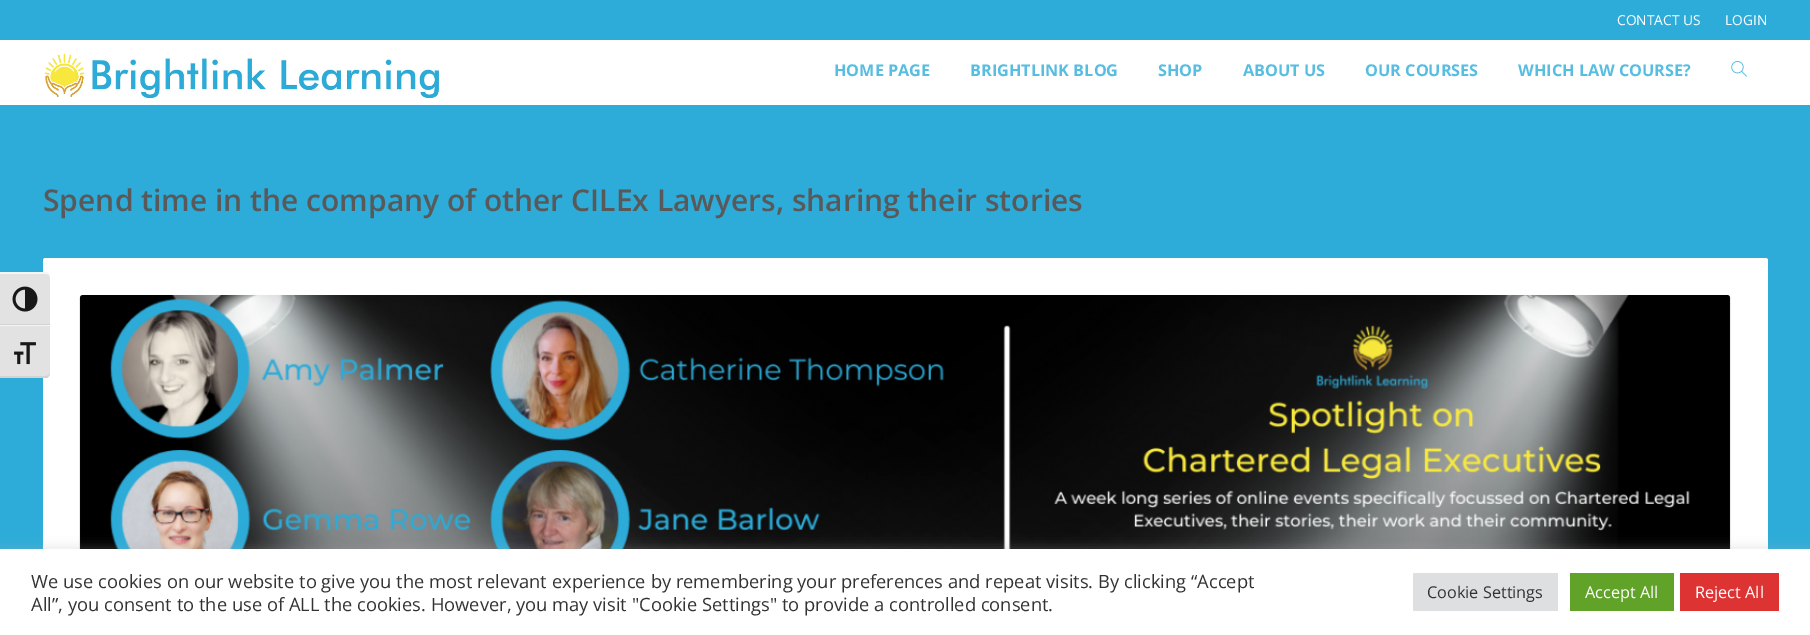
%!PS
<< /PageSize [1810 635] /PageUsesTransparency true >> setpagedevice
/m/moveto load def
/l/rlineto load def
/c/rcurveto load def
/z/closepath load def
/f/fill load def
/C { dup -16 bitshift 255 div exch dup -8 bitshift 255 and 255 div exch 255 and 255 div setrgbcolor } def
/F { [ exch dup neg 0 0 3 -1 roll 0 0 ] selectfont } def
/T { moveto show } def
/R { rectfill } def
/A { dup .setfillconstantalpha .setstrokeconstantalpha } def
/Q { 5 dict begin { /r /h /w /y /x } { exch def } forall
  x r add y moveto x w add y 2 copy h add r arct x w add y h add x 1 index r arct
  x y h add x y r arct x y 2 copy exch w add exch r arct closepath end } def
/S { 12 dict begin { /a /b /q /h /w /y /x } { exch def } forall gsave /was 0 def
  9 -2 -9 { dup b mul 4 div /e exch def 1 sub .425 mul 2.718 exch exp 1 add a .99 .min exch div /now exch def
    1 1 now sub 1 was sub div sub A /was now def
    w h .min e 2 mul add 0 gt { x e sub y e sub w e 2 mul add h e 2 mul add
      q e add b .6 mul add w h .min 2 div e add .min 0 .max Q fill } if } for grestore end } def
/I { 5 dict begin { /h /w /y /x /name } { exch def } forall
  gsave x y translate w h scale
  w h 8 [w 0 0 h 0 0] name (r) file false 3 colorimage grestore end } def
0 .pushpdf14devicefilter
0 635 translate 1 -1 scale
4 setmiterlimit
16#2DACD9 C
0 0 1810 635 R
/OpenSans-Regular 13.75 F
16#FFFFFF C
(CONTACT US) 1617 25 T
(LOGIN) 1725 25 T
0 40 1810 65 R
(1.rgb) 44 53 395 46 I
/OpenSans-Bold 16.25 F
16#57BDE1 C
(HOME PAGE) 834 76 T
(BRIGHTLINK BLOG) 970 76 T
(SHOP) 1158 76 T
(ABOUT US) 1243 76 T
(OUR COURSES) 1365 76 T
(WHICH LAW COURSE?) 1518 76 T
(2.rgb) 1731 61 16 16 I
/OpenSans-SemiBold 30 F
16#595959 C
(Spend time in the company of other CILEx Lawyers, sharing their stories) 43 211 T
16#FFFFFF C
43 258 1725 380 2.5 Q f
16#AAAAAA C
80 296 1650 310 2.5 .5 1 S
(3.rgb) 80 295 1650 254 I
16#E2E2E2 C
0 273 m 45 0 l 3 0 5 2 5 5 c 0 47 l -50 0 l z f
16#F5F5F5 C
0 274 m 45 0 l 3 0 5 1 5 4 c 0 -2 -1 -5 -3 -6 c -47 0 l z f
16#D2D2D2 C
0 324 50 1 R
(4.rgb) 12 286 26 26 I
16#E2E2E2 C
0 325 m 50 0 l 0 48 l 0 3 -2 5 -5 5 c -45 0 l z f
16#F5F5F5 C
0 325 50 1 R
16#D2D2D2 C
47 378 m 2 -1 3 -4 3 -6 c 0 3 -2 4 -5 4 c -45 0 l 0 2 l z f
(5.rgb) 14 342 22 23 I
16#ACABAB C
0 548 1810 86 0 6 .3 S
16#FFFFFF C
0 549 1810 86 R
/OpenSans-Regular 18.33 F
16#333333 C
(We use cookies on our website to give you the most relevant experience by remembering your preferences and repeat visits. By clicking “Accept) 31 588 T
(All”, you consent to the use of ALL the cookies. However, you may visit "Cookie Settings" to provide a controlled consent.) 31 611 T
16#DEDFE0 C
1413 573 145 38 R
/OpenSans-Regular 16.25 F
16#333333 C
(Cookie Settings) 1427 598 T
16#61A229 C
1570 573 104 38 R
16#FFFFFF C
(Accept All) 1585 598 T
16#DD3333 C
1680 573 99 38 R
16#FFFFFF C
(Reject All) 1695 598 T
.poppdf14devicefilter showpage
